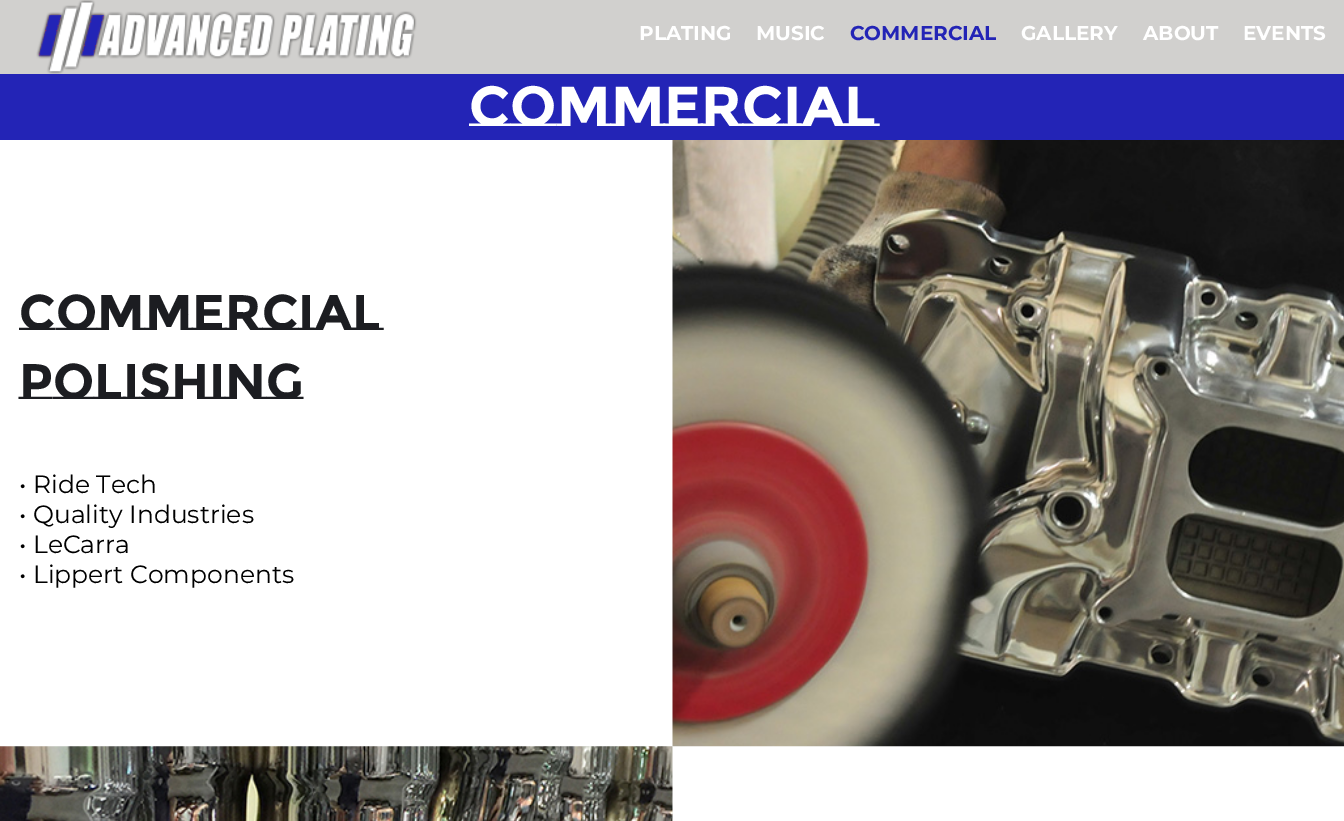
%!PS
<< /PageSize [1344 821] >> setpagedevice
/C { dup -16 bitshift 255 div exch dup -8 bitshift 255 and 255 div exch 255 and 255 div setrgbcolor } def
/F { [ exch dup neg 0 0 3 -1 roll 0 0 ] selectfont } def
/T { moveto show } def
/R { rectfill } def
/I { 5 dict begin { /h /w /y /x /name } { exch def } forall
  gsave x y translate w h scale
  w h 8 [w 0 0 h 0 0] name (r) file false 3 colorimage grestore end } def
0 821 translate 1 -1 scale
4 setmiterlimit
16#FFFFFF C
0 0 1344 821 R
16#D1D0CE C
0 0 1344 74 R
(1.rgb) 36 0 381 74 I
/Montserrat-Bold 20 F
16#FFFFFF C
(PLATING) 639 40 T
(MUSIC) 756 40 T
16#2324B6 C
(COMMERCIAL) 850 40 T
16#FFFFFF C
(GALLERY) 1021 40 T
(ABOUT) 1143 40 T
(EVENTS) 1243 40 T
16#2324B6 C
0 74 1344 66 R
/MontserratSubrayada-Bold 56.25 F
16#FFFFFF C
(COMMERCIAL) 469 126 T
/MontserratSubrayada-Bold 50 F
16#1C1D21 C
(Commercial) 19 330 T
(Polishing) 19 399 T
/Montserrat-Regular 25 F
16#000000 C
(• Ride Tech) 19 493 T
(• Quality Industries) 19 523 T
(• LeCarra) 19 553 T
(• Lippert Components) 19 583 T
(2.rgb) 672 140 672 607 I
(3.rgb) 0 746 673 75 I
showpage
